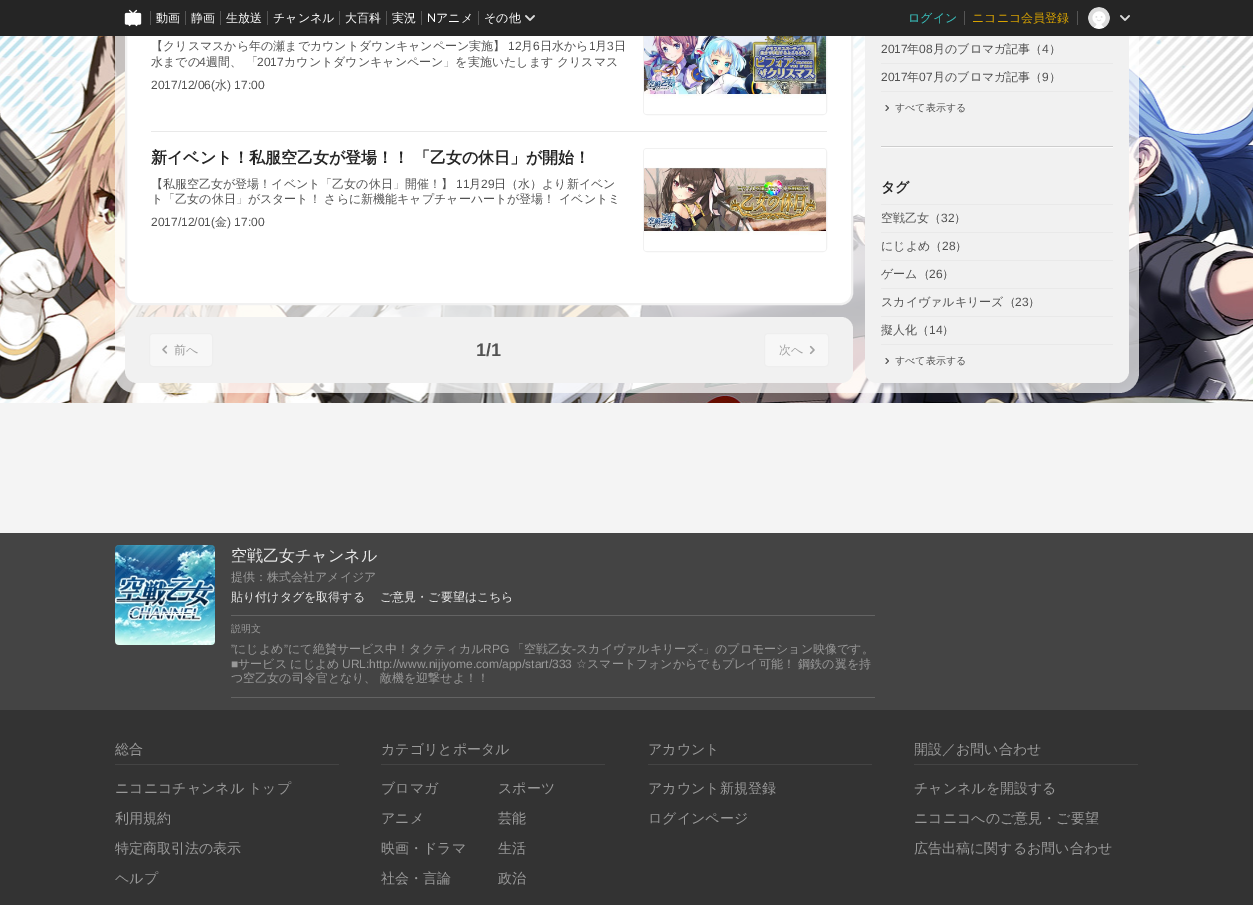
%!PS
<< /PageSize [1253 905] /PageUsesTransparency true >> setpagedevice
/f/fill load def
/s/stroke load def
/q/gsave load def
/Q_/grestore load def
/w/setlinewidth load def
/C { dup -16 bitshift 255 div exch dup -8 bitshift 255 and 255 div exch 255 and 255 div setrgbcolor } def
/F { [ exch dup neg 0 0 3 -1 roll 0 0 ] selectfont } def
/T { moveto show } def
/R { rectfill } def
/A { dup .setfillconstantalpha .setstrokeconstantalpha } def
/Q { 5 dict begin { /r /h /w /y /x } { exch def } forall
  x r add y moveto x w add y 2 copy h add r arct x w add y h add x 1 index r arct
  x y h add x y r arct x y 2 copy exch w add exch r arct closepath end } def
/I { 5 dict begin { /h /w /y /x /name } { exch def } forall
  gsave x y translate w h scale
  w h 8 [w 0 0 h 0 0] name (r) file false 3 colorimage grestore end } def
0 .pushpdf14devicefilter
0 905 translate 1 -1 scale
4 setmiterlimit
16#FFFFFF C
0 0 1253 905 R
(4.rgb) 0 36 1253 367 I
0.7 A
115 -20 1024 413 20 Q f
1 A
126 -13 726 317 11 Q q f Q_
16#F1F1F1 C
2 w
s
1 w
643.5 11.5 183 103 3.5 Q s
865 -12 264 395 12 Q f
16#252525 C
0 0 1253 36 R
(1.rgb) 124 9 18 18 I
16#555555 C
150 11 1 14 R
/WenQuanYiZenHei-Medium 12 F
16#FFFFFF C
(動画) 156 22 T
16#555555 C
185 11 1 14 R
16#FFFFFF C
(静画) 191 22 T
16#555555 C
220 11 1 14 R
16#FFFFFF C
(生放送) 226 22 T
16#555555 C
267 11 1 14 R
16#FFFFFF C
(チャンネル) 273 22 T
16#555555 C
339 11 1 14 R
16#FFFFFF C
(大百科) 345 22 T
16#555555 C
386 11 1 14 R
16#FFFFFF C
(実況) 392 22 T
16#555555 C
421 11 1 14 R
/Lato-Regular 12 F
16#FFFFFF C
(N) 427 22 T
/WenQuanYiZenHei-Medium 12 F
(アニメ) 436 22 T
16#555555 C
478 11 1 14 R
16#FFFFFF C
(その他) 484 22 T
(2.rgb) 525 15 10 6 I
16#39C4C1 C
(ログイン) 908 22 T
16#555555 C
964 11 1 14 R
16#D9A300 C
(ニコニコ会員登録) 972 22 T
16#555555 C
1077 11 1 14 R
(3.rgb) 1088 7 22 22 I
(2.rgb) 1120 15 10 6 I
16#525252 C
(【クリスマスから年の瀬までカウントダウンキャンペーン実施】) 151 50 T
/LiberationSans-Regular 12 F
(12) 508 50 T
/WenQuanYiZenHei-Medium 12 F
(月) 521 50 T
/LiberationSans-Regular 12 F
(6) 533 50 T
/WenQuanYiZenHei-Medium 12 F
(日水から) 540 50 T
/LiberationSans-Regular 12 F
(1) 589 50 T
/WenQuanYiZenHei-Medium 12 F
(月) 595 50 T
/LiberationSans-Regular 12 F
(3) 607 50 T
/WenQuanYiZenHei-Medium 12 F
(日) 614 50 T
(水までの) 151 66 T
/LiberationSans-Regular 12 F
(4) 199 66 T
/WenQuanYiZenHei-Medium 12 F
(週間、 「) 206 66 T
/LiberationSans-Regular 12 F
(2017) 257 66 T
/WenQuanYiZenHei-Medium 12 F
(カウントダウンキャンペーン」を実施いたします クリスマス) 284 66 T
/LiberationSans-Regular 12 F
(2017/12/06\() 151 89 T
/WenQuanYiZenHei-Medium 12 F
(水) 215 89 T
/LiberationSans-Regular 12 F
(\) 17:00) 227 89 T
(5.rgb) 644 36 182 78 I
16#E9E9E9 C
151 131 676 1 R
/WenQuanYiZenHei-Bold 16 F
16#252525 C
(新イベント！私服空乙女が登場！！ 「乙女の休日」が開始！) 151 163 T
/WenQuanYiZenHei-Medium 12 F
16#525252 C
(【私服空乙女が登場！イベント「乙女の休日」開催！】) 151 188 T
/LiberationSans-Regular 12 F
(11) 456 188 T
/WenQuanYiZenHei-Medium 12 F
(月) 469 188 T
/LiberationSans-Regular 12 F
(29) 481 188 T
/WenQuanYiZenHei-Medium 12 F
(日（水）より新イベン) 494 188 T
(ト「乙女の休日」がスタート！ さらに新機能キャプチャーハートが登場！ イベントミ) 151 203 T
/LiberationSans-Regular 12 F
(2017/12/01\() 151 226 T
/WenQuanYiZenHei-Medium 12 F
(金) 215 226 T
/LiberationSans-Regular 12 F
(\) 17:00) 227 226 T
16#F1F1F1 C
643.5 148.5 183 103 3.5 Q s
(6.rgb) 644 149 182 102 I
125 317 728 66 12 Q f
16#F7F7F7 C
149.5 333.5 63 33 3.5 Q q f Q_
16#EEEEEE C
s
(7.rgb) 162 345 6 9 I
/WenQuanYiZenHei-Medium 12 F
16#9F9F9F C
(前へ) 174 354 T
/LiberationSans-Bold 18 F
16#525252 C
(1/1) 476 356 T
16#F7F7F7 C
764.5 333.5 64 33 3.5 Q q f Q_
16#EEEEEE C
s
/WenQuanYiZenHei-Medium 12 F
16#9F9F9F C
(次へ) 779 354 T
(8.rgb) 809 345 6 10 I
16#E9E9E9 C
881 63 232 1 R
/LiberationSans-Regular 12 F
16#525252 C
(2017) 881 53 T
/WenQuanYiZenHei-Medium 12 F
(年) 907 53 T
/LiberationSans-Regular 12 F
(08) 919 53 T
/WenQuanYiZenHei-Medium 12 F
(月のブロマガ記事（) 933 53 T
/LiberationSans-Regular 12 F
(4) 1042 53 T
/WenQuanYiZenHei-Medium 12 F
(）) 1049 53 T
16#E9E9E9 C
881 91 232 1 R
/LiberationSans-Regular 12 F
16#525252 C
(2017) 881 81 T
/WenQuanYiZenHei-Medium 12 F
(年) 907 81 T
/LiberationSans-Regular 12 F
(07) 919 81 T
/WenQuanYiZenHei-Medium 12 F
(月のブロマガ記事（) 933 81 T
/LiberationSans-Regular 12 F
(9) 1042 81 T
/WenQuanYiZenHei-Medium 12 F
(）) 1049 81 T
(9.rgb) 885 105 4 6 I
/WenQuanYiZenHei-Medium 10 F
(すべて表示する) 895 111 T
16#CDCDCD C
881 146 232 1 R
16#FCFCFC C
881 147 232 1 R
16#E9E9E9 C
881 204 232 1 R
/WenQuanYiZenHei-Bold 14 F
16#252525 C
(タグ) 881 192 T
16#E9E9E9 C
881 232 232 1 R
/WenQuanYiZenHei-Medium 12 F
16#525252 C
(空戦乙女（) 881 222 T
/LiberationSans-Regular 12 F
(32) 941 222 T
/WenQuanYiZenHei-Medium 12 F
(）) 954 222 T
16#E9E9E9 C
881 260 232 1 R
16#525252 C
(にじよめ（) 881 250 T
/LiberationSans-Regular 12 F
(28) 942 250 T
/WenQuanYiZenHei-Medium 12 F
(）) 955 250 T
16#E9E9E9 C
881 288 232 1 R
16#525252 C
(ゲーム（) 881 278 T
/LiberationSans-Regular 12 F
(26) 929 278 T
/WenQuanYiZenHei-Medium 12 F
(）) 942 278 T
16#E9E9E9 C
881 316 232 1 R
16#525252 C
(スカイヴァルキリーズ（) 881 306 T
/LiberationSans-Regular 12 F
(23) 1015 306 T
/WenQuanYiZenHei-Medium 12 F
(）) 1028 306 T
16#E9E9E9 C
881 344 232 1 R
q
881 324 232 12 rectclip
16#525252 C
(擬人化（) 881 334 T
Q_
/LiberationSans-Regular 12 F
16#525252 C
(14) 929 334 T
/WenQuanYiZenHei-Medium 12 F
(）) 942 334 T
(9.rgb) 885 358 4 6 I
/WenQuanYiZenHei-Medium 10 F
(すべて表示する) 895 364 T
16#333333 C
0 710 1253 195 R
16#F4F4F4 C
0 403 1253 130 R
16#444444 C
0 533 1253 177 R
(10.rgb) 115 545 100 100 I
/WenQuanYiZenHei-Medium 16 F
16#E9E9E9 C
(空戦乙女チャンネル) 231 561 T
/WenQuanYiZenHei-Medium 12 F
16#999999 C
(提供：株式会社アメイジア) 231 581 T
16#E9E9E9 C
(貼り付けタグを取得する) 231 601 T
(ご意見・ご要望はこちら) 380 601 T
16#636363 C
231 615 644 1 R
/WenQuanYiZenHei-Medium 10 F
16#999999 C
(説明文) 231 632 T
/LiberationSans-Regular 12 F
(”) 231 653 T
/WenQuanYiZenHei-Medium 12 F
(にじよめ) 234 653 T
/LiberationSans-Regular 12 F
(”) 284 653 T
/WenQuanYiZenHei-Medium 12 F
(にて絶賛サービス中！タクティカル) 288 653 T
/LiberationSans-Regular 12 F
(RPG) 483 653 T
/WenQuanYiZenHei-Medium 12 F
(「空戦乙女) 512 653 T
/LiberationSans-Regular 12 F
(-) 572 653 T
/WenQuanYiZenHei-Medium 12 F
(スカイヴァルキリーズ) 576 653 T
/LiberationSans-Regular 12 F
(-) 699 653 T
/WenQuanYiZenHei-Medium 12 F
(」のプロモーション映像です。) 703 653 T
/LiberationSans-Regular 12 F
(■) 231 668 T
/WenQuanYiZenHei-Medium 12 F
(サービス にじよめ) 238 668 T
/LiberationSans-Regular 12 F
(URL:http://www.nijiyome.com/app/start/333) 342 668 T
/DejaVuSans-Regular 12 F
(☆) 576 668 T
/WenQuanYiZenHei-Medium 12 F
(スマートフォンからでもプレイ可能！ 鋼鉄の翼を持) 587 668 T
(つ空乙女の司令官となり、 敵機を迎撃せよ！！) 231 682 T
16#636363 C
231 697 644 1 R
16#444444 C
115 764 224 1 R
/WenQuanYiZenHei-Medium 14 F
16#999999 C
(総合) 115 754 T
(ニコニコチャンネル トップ) 115 793 T
(利用規約) 115 823 T
(特定商取引法の表示) 115 853 T
(ヘルプ) 115 883 T
16#444444 C
381 764 224 1 R
16#999999 C
(カテゴリとポータル) 381 754 T
(ブロマガ) 381 793 T
(アニメ) 381 823 T
(映画・ドラマ) 381 853 T
(社会・言論) 381 883 T
(スポーツ) 498 793 T
(芸能) 498 823 T
(生活) 498 853 T
(政治) 498 883 T
16#444444 C
648 764 224 1 R
16#999999 C
(アカウント) 648 754 T
(アカウント新規登録) 648 793 T
(ログインページ) 648 823 T
16#444444 C
914 764 224 1 R
16#999999 C
(開設／お問い合わせ) 914 754 T
(チャンネルを開設する) 914 793 T
(ニコニコへのご意見・ご要望) 914 823 T
(広告出稿に関するお問い合わせ) 914 853 T
.poppdf14devicefilter showpage
